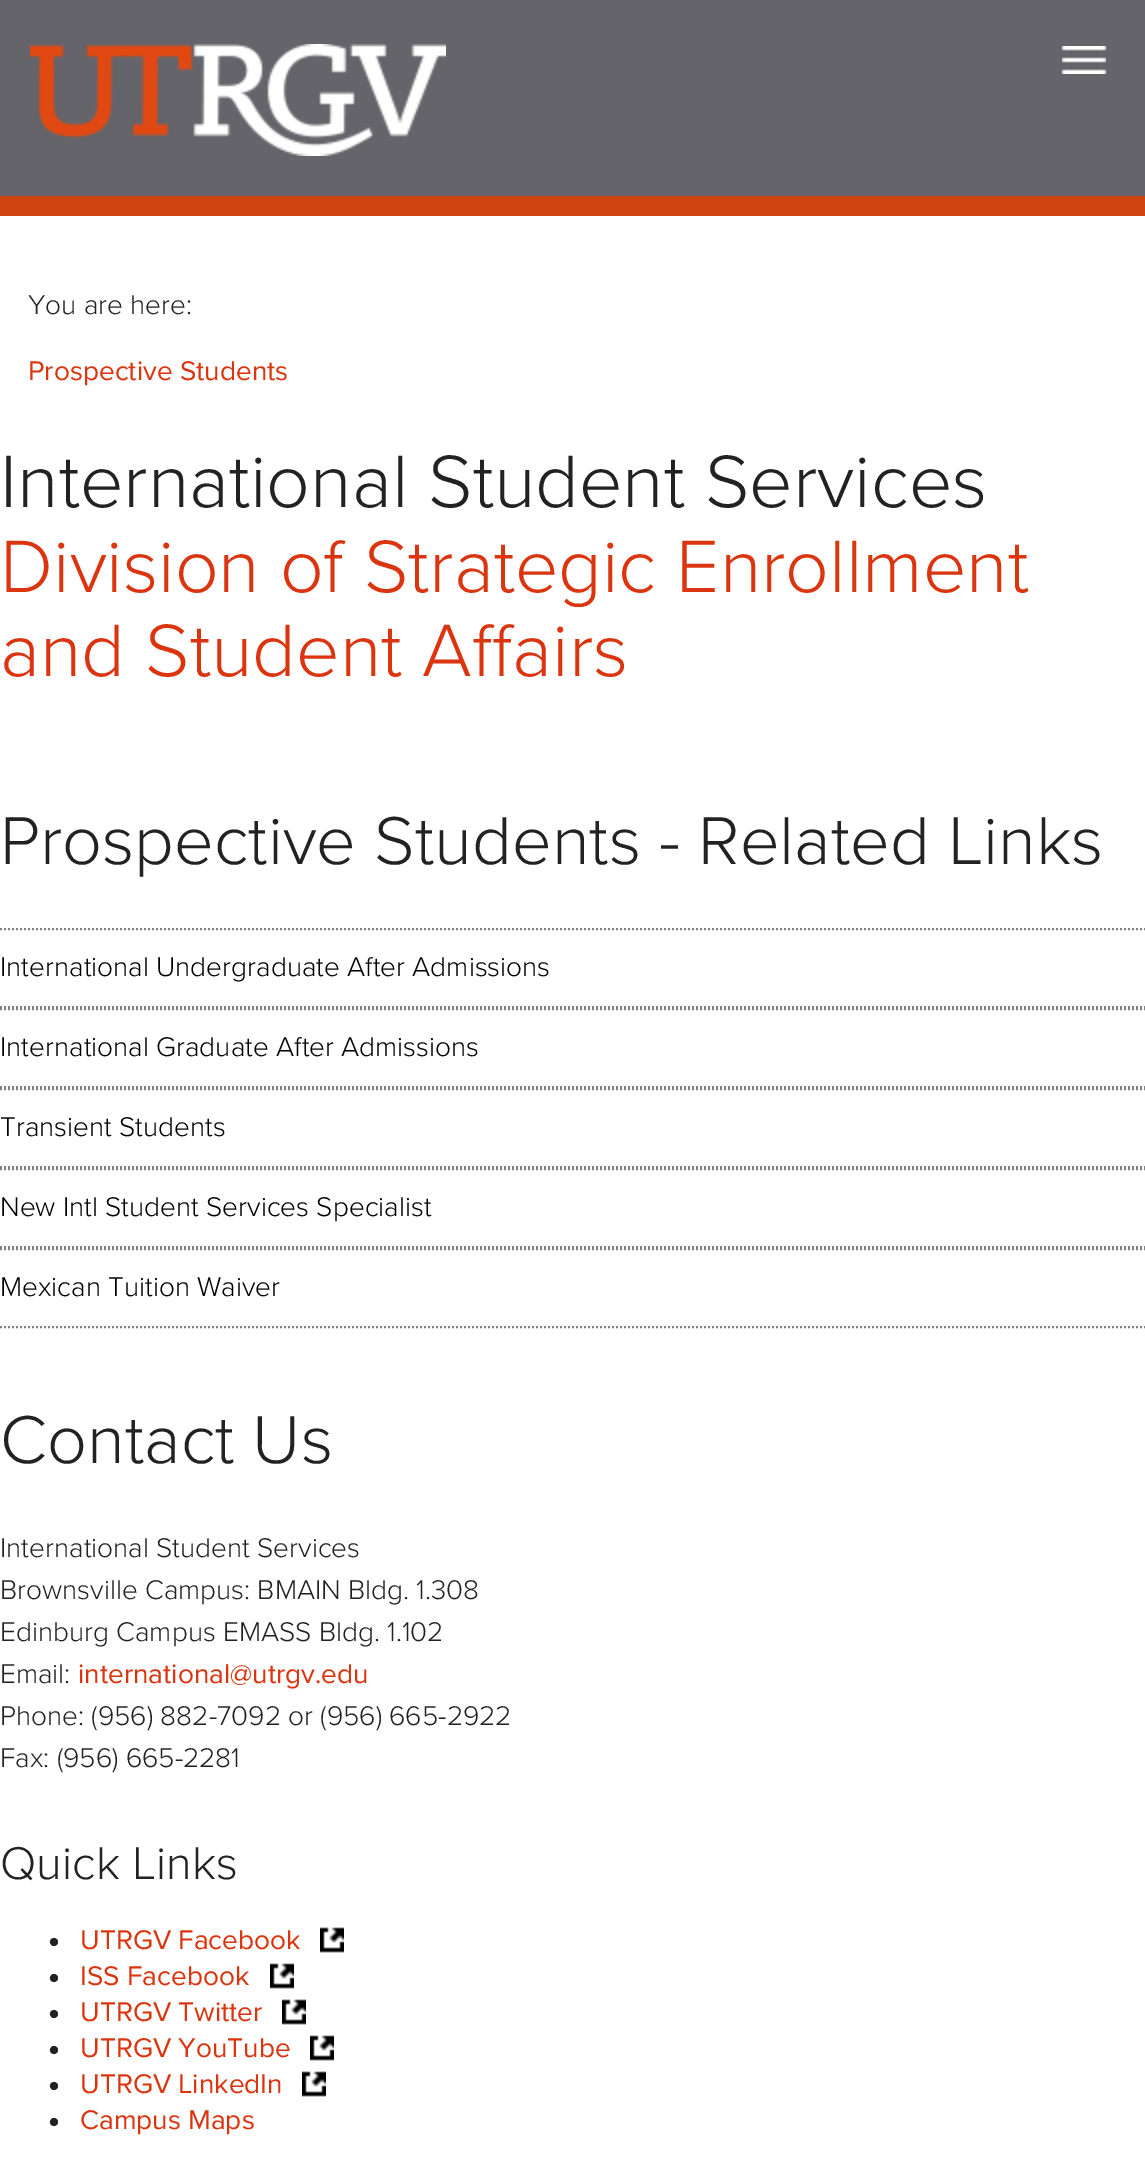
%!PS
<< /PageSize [1145 2181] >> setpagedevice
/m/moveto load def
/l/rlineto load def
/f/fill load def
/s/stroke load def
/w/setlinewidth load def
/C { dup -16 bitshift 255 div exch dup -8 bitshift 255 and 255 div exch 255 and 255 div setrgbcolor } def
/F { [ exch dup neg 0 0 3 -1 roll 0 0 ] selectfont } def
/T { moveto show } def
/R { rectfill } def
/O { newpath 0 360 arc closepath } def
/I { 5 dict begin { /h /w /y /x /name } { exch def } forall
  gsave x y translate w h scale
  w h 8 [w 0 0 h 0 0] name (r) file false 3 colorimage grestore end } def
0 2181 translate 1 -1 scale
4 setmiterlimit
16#FFFFFF C
0 0 1145 2181 R
16#65646A C
0 0 1145 196 R
16#CF4411 C
0 196 1145 20 R
(1.rgb) 30 44 416 112 I
(2.rgb) 1062 46 44 28 I
/ProximaNova-Light 28 F
16#222222 C
(You are here:) 28 314 T
/ProximaNova-Regular 28 F
16#DB350F C
(Prospective Students) 28 380 T
/ProximaNova-Light 76.75 F
16#222222 C
(International Student Services) 0 507 T
16#DB350F C
(Division of Strategic Enrollment) 0 592 T
(and Student Affairs) 0 676 T
/ProximaNova-Light 70 F
16#222222 C
(Prospective Students - Related Links) 0 864 T
16#808080 C
2 w
[2 2] 0 setdash
0 929 m 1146 0 l s
0 1007 m 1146 0 l s
/ProximaNova-Light 28 F
16#000000 C
(International Undergraduate After Admissions) 0 976 T
16#808080 C
0 1009 m 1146 0 l s
0 1087 m 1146 0 l s
16#000000 C
(International Graduate After Admissions) 0 1056 T
16#808080 C
0 1089 m 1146 0 l s
0 1167 m 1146 0 l s
16#000000 C
(Transient Students) 0 1136 T
16#808080 C
0 1169 m 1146 0 l s
0 1247 m 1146 0 l s
16#000000 C
(New Intl Student Services Specialist) 0 1216 T
16#808080 C
0 1249 m 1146 0 l s
0 1327 m 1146 0 l s
16#000000 C
(Mexican Tuition Waiver) 0 1296 T
/ProximaNova-Light 70 F
16#222222 C
(Contact Us) 0 1463 T
/ProximaNova-Light 28 F
(International Student Services) 0 1557 T
(Brownsville Campus: BMAIN Bldg. 1.308) 0 1599 T
(Edinburg Campus EMASS Bldg. 1.102) 0 1641 T
(Email:) 0 1683 T
/ProximaNova-Regular 28 F
16#DB350F C
(international@utrgv.edu) 78 1683 T
/ProximaNova-Light 28 F
16#222222 C
(Phone: \(956\) 882-7092 or \(956\) 665-2922) 0 1725 T
(Fax: \(956\) 665-2281) 0 1767 T
/ProximaNova-Light 47.5 F
(Quick Links) 0 1879 T
54 1942 4 O f
/ProximaNova-Regular 28 F
16#DB350F C
(UTRGV Facebook) 80 1949 T
(3.rgb) 320 1927 24 26 I
16#222222 C
54 1978 4 O f
16#DB350F C
(ISS Facebook) 80 1985 T
(3.rgb) 270 1963 24 26 I
16#222222 C
54 2014 4 O f
16#DB350F C
(UTRGV Twitter) 80 2021 T
(3.rgb) 282 1999 24 26 I
16#222222 C
54 2050 4 O f
16#DB350F C
(UTRGV YouTube) 80 2057 T
(3.rgb) 310 2035 24 26 I
16#222222 C
54 2086 4 O f
16#DB350F C
(UTRGV LinkedIn) 80 2093 T
(3.rgb) 302 2071 24 26 I
16#222222 C
54 2122 4 O f
16#DB350F C
(Campus Maps) 80 2129 T
showpage
